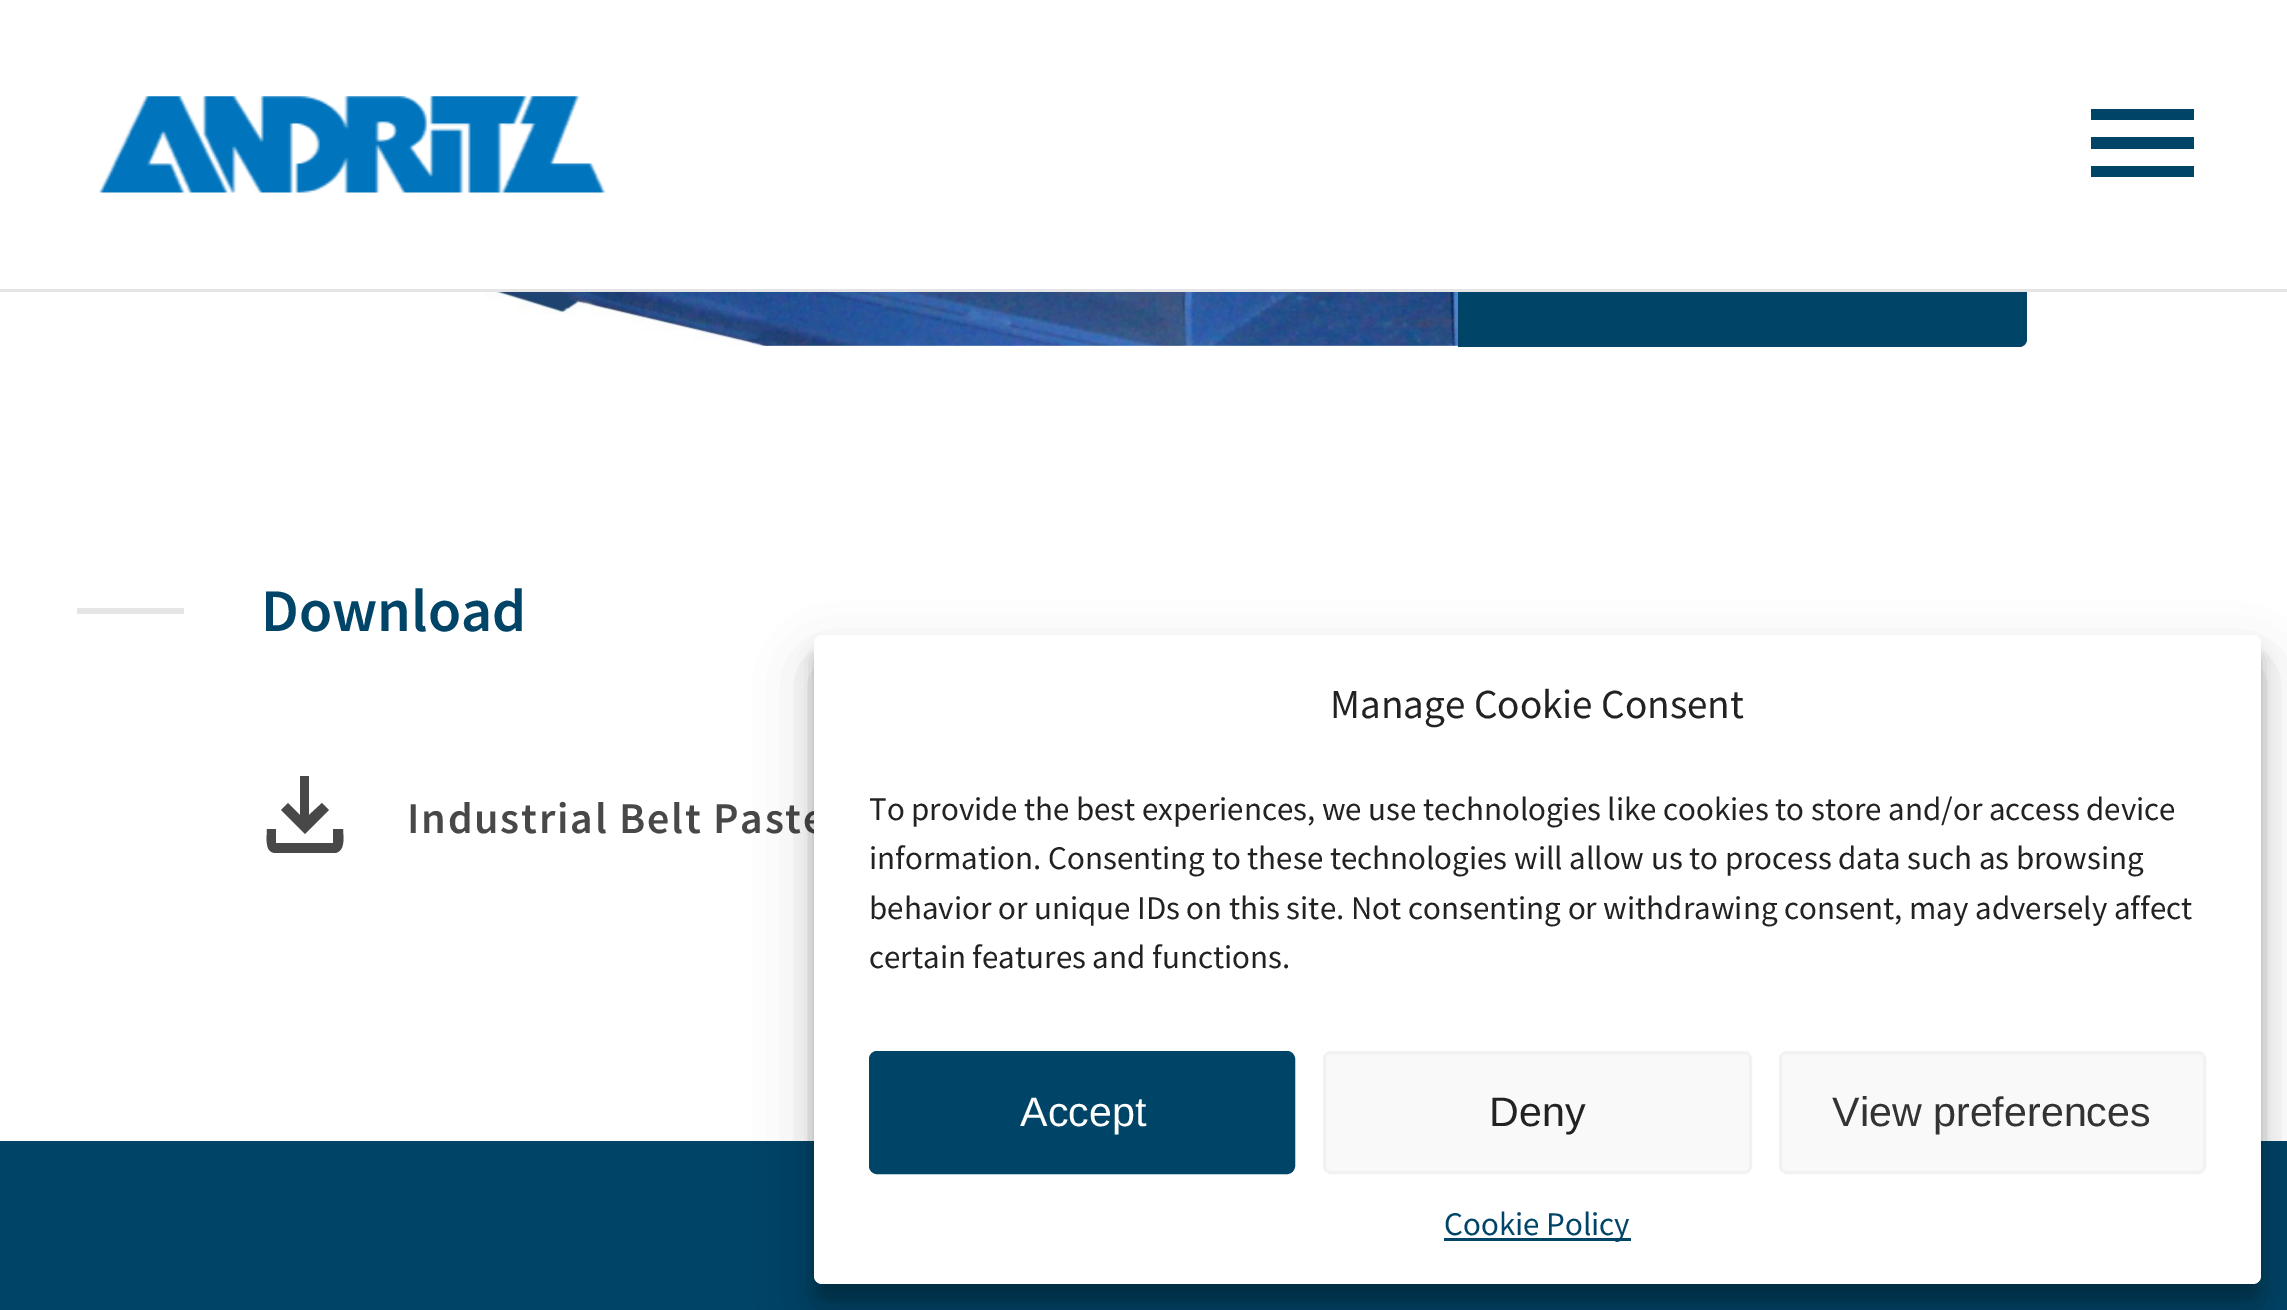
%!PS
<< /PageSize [2287 1310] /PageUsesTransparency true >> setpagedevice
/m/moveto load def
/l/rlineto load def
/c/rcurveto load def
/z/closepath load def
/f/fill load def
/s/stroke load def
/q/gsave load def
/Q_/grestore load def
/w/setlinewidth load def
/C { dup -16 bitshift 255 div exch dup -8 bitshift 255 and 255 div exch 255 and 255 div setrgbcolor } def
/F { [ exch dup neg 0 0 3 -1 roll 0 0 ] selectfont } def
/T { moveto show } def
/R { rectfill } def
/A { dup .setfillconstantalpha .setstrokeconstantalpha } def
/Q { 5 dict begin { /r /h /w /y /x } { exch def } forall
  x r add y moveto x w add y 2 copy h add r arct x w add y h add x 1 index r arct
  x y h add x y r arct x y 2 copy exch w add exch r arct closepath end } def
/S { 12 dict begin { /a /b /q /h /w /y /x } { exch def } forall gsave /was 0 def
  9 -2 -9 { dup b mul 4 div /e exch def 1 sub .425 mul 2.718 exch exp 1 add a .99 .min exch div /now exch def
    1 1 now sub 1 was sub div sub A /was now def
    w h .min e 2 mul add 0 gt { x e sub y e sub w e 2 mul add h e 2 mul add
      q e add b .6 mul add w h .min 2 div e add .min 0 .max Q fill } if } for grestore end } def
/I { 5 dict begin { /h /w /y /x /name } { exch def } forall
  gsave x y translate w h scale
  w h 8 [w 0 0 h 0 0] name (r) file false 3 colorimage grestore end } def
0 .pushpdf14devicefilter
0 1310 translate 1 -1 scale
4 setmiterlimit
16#FFFFFF C
0 0 2287 1310 R
16#004467 C
1458 118 m 569 0 l 0 221 l 0 4.5 -3.5 8 -8 8 c -561 0 l z f
16#FFFFFF C
1458 118 569 171 R
16#E5E5E5 C
0 289 2287 3 R
(1.rgb) 99 96 506 97 I
16#004467 C
2091 177 m 0 -11 l 103 0 l 0 11 l z 2091 149 m 0 -12 l 103 0 l 0 12 l z 2091 120 m 0 -11 l 103 0 l 0 11 l z f
(2.rgb) 460 292 998 54 I
16#E5E5E5 C
77 608 107 6 R
/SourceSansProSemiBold-SemiBold 60.5 F
16#004467 C
(Download) 261 631 T
16#484848 C
305 834 m -24 -24 l 7 -7 l 12 12 l 0 -39 l 9 0 l 0 39 l 13 -12 l 7 7 l z 276 853 m -12 0 -9 -16 -9 -24 c 9 0 l 0 14 l 57 0 l 0 -14 l 10 0 l 0 7 3 22 -8 24 c z f
/SourceSansProSemiBold-SemiBold 44 F
407 833 m 1.75 0 (Industrial Belt Paste) ashow
16#004467 C
0 1141 2287 169 R
16#000000 C
814 652 1447 649 8 8 .23 S
814 663 1447 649 8 27.5 .19 S
16#FFFFFF C
814 635 1447 649 8 Q f
/SourceSansPro-Regular 41.25 F
16#222222 C
(Manage Cookie Consent) 1330 718 T
/SourceSansPro-Regular 33 F
(To provide the best experiences, we use technologies like cookies to store and/or access device) 869 820 T
(information. Consenting to these technologies will allow us to process data such as browsing) 869 869 T
(behavior or unique IDs on this site. Not consenting or withdrawing consent, may adversely affect) 869 919 T
(certain features and functions.) 869 968 T
16#004467 C
870.5 1052.5 423 120 6.5 Q q f Q_
3 w
s
/LiberationSans-Regular 41.25 F
16#FFFFFF C
(Accept) 1020 1126 T
16#F9F9F9 C
1324.5 1052.5 426 120 6.5 Q q f Q_
16#F2F2F2 C
s
16#222222 C
(Deny) 1489 1126 T
16#F9F9F9 C
1780.5 1052.5 424 120 6.5 Q q f Q_
16#F2F2F2 C
s
16#333333 C
(View preferences) 1832 1126 T
16#004467 C
1444 1238 187 3 R
/SourceSansPro-Regular 33 F
(Cookie Policy) 1444 1235 T
.poppdf14devicefilter showpage
